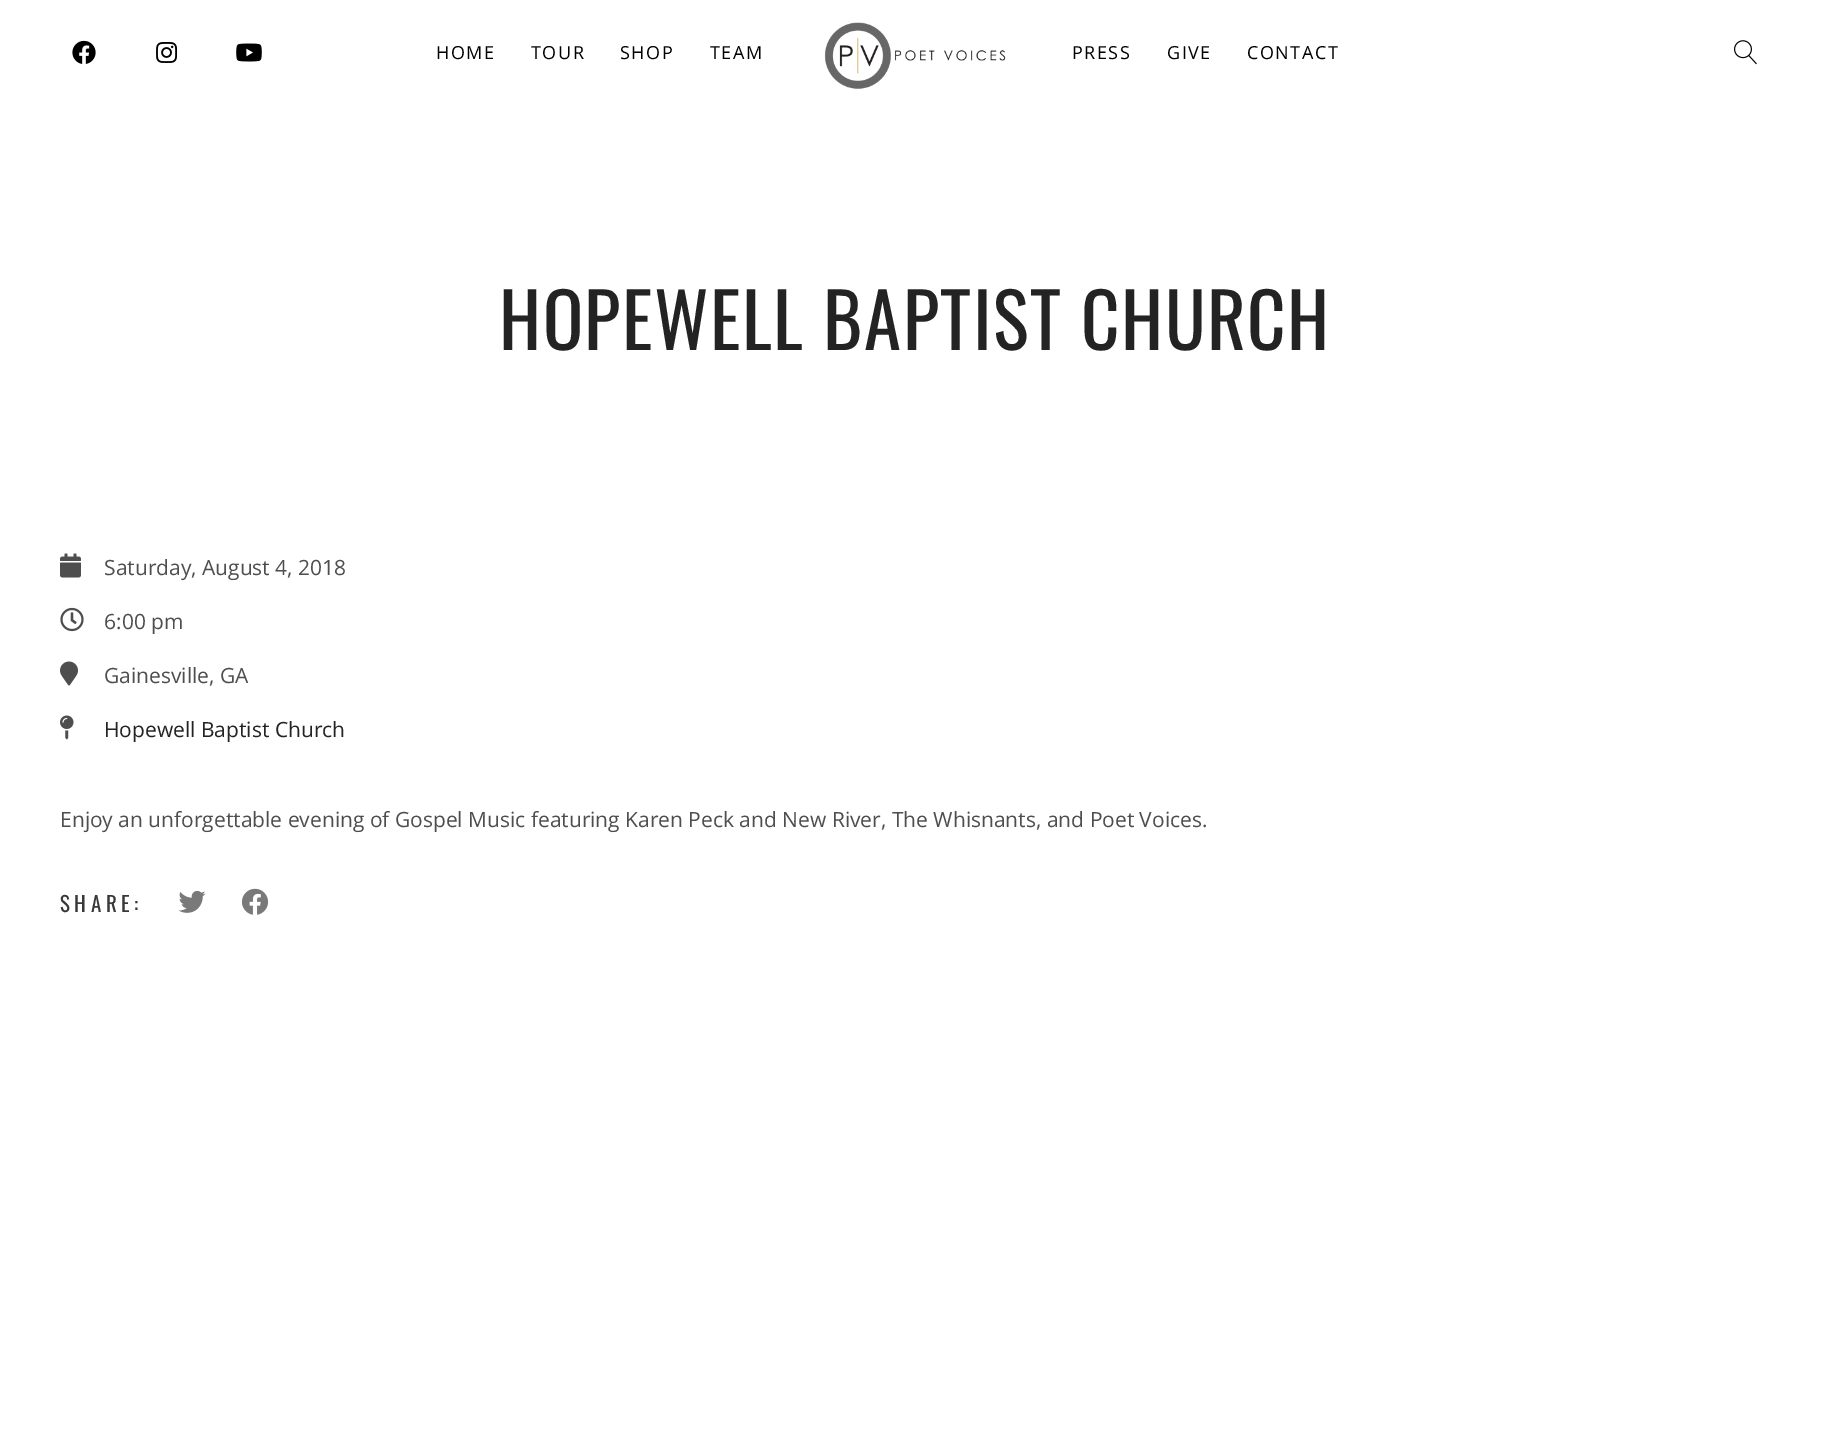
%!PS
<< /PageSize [1830 1432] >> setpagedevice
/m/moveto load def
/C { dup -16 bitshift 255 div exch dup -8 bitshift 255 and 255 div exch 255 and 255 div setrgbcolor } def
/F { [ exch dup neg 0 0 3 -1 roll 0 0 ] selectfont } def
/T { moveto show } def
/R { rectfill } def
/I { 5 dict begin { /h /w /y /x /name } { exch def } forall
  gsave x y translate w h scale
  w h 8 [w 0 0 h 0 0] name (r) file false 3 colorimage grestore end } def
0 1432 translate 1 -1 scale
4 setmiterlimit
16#FFFFFF C
0 0 1830 1432 R
(1.rgb) 72 40 24 24 I
(2.rgb) 156 42 22 21 I
(3.rgb) 236 43 26 19 I
/OpenSans-Regular 18 F
16#000000 C
436 59 m 1.5 0 (HOME) ashow
531 59 m 1.5 0 (TOUR) ashow
620 59 m 1.5 0 (SHOP) ashow
710 59 m 1.5 0 (TEAM) ashow
(4.rgb) 824 22 182 67 I
1072 59 m 1.5 0 (PRESS) ashow
1167 59 m 1.5 0 (GIVE) ashow
1247 59 m 1.5 0 (CONTACT) ashow
(5.rgb) 1734 40 23 25 I
/Oswald-Regular 75 F
16#232323 C
499 350 m 1.5 0 (HOPEWELL BAPTIST CHURCH) ashow
(6.rgb) 60 553 21 25 I
/OpenSans-Regular 21 F
16#4E4E4E C
(Saturday, August 4, 2018) 104 575 T
(7.rgb) 60 607 24 25 I
(6:00 pm) 104 629 T
(8.rgb) 60 661 18 25 I
(Gainesville, GA) 104 683 T
(9.rgb) 60 715 14 25 I
16#232323 C
(Hopewell Baptist Church) 104 737 T
16#4E4E4E C
(Enjoy an unforgettable evening of Gospel Music featuring Karen Peck and New River, The Whisnants, and Poet Voices.) 60 827 T
/Oswald-Regular 21 F
16#383838 C
60 912 m 4.5 0 (SHARE:) ashow
(10.rgb) 178 890 28 23 I
(11.rgb) 241 888 28 27 I
showpage
